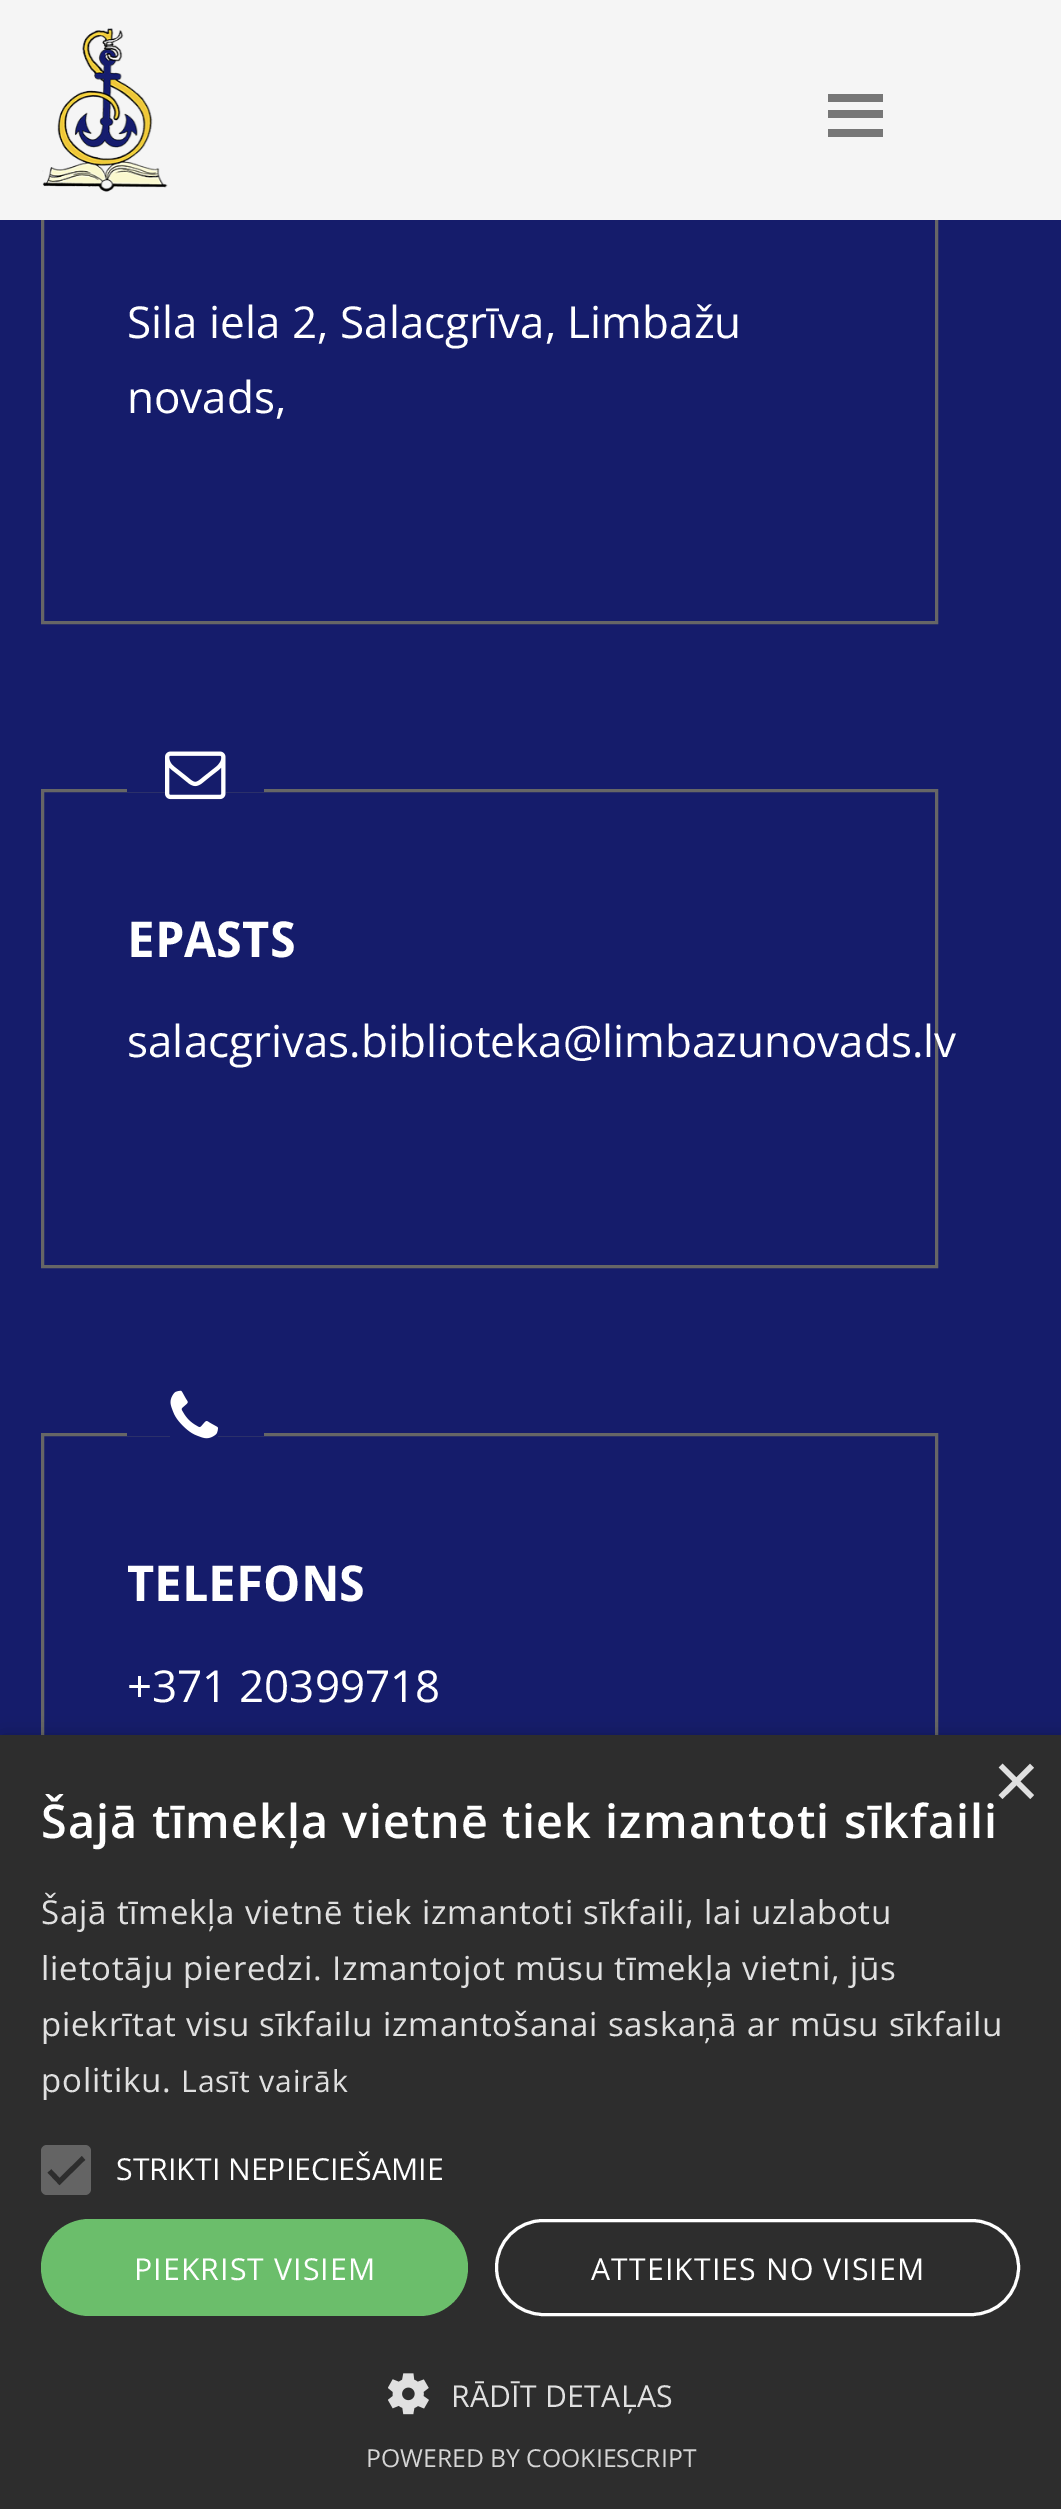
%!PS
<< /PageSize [1061 2509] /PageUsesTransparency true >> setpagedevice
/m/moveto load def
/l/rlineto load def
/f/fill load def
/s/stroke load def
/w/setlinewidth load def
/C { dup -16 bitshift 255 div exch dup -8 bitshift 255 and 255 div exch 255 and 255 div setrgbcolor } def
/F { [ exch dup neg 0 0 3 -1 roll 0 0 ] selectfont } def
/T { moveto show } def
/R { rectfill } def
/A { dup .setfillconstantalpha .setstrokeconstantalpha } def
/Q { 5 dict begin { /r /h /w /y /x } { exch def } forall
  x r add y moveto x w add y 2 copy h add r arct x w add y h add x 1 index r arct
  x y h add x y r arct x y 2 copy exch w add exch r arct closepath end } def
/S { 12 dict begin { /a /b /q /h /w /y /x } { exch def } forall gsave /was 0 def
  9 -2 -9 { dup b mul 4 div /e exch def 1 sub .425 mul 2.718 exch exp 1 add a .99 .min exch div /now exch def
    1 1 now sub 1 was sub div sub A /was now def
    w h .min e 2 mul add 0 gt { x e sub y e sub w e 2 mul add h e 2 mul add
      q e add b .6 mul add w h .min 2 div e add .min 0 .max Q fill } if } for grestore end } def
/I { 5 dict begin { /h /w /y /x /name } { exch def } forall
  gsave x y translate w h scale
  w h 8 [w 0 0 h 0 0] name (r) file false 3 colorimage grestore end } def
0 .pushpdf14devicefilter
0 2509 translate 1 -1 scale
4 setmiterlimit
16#151C6B C
0 0 1061 2509 R
16#666666 C
3 w
42.5 70.5 894 552 rectstroke
16#F5F5F5 C
0 0 1061 220 R
(1.rgb) 42 28 126 164 I
16#777777 C
828 94 55 8 R
828 110 55 8 R
828 129 55 8 R
/OpenSans-Regular 44 F
16#FFFFFF C
(Sila iela 2, Salacgrīva, Limbažu) 127 338 T
(novads,) 127 413 T
16#666666 C
42.5 790.5 894 476 rectstroke
16#151C6B C
127 789 137 3 R
(2.rgb) 165 751 61 49 I
/DroidSans-Bold 49.5 F
16#FFFFFF C
(EPASTS) 127 957 T
/OpenSans-Regular 44 F
(salacgrivas.biblioteka@limbazunovads.lv) 127 1057 T
16#666666 C
42.5 1434.5 894 478 rectstroke
16#151C6B C
127 1433 137 3 R
(3.rgb) 170 1390 48 49 I
/DroidSans-Bold 49.5 F
16#FFFFFF C
(TELEFONS) 127 1601 T
/OpenSans-Regular 44 F
(+371 20399718) 127 1702 T
16#000000 C
3 1741 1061 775 0 11 .35 S
16#2D2D2D C
0 1735 1061 774 R
/LiberationSans-Regular 80 F
16#E0E0E0 C
(×) 993 1808 T
/OpenSans-SemiBold 46.75 F
16#FFFFFF C
41 1838 m 1.1 0 (Šajā tīmekļa vietnē tiek izmantoti sīkfaili) ashow
/OpenSans-Regular 33 F
16#E0E0E0 C
41 1924 m .82 0 (Šajā tīmekļa vietnē tiek izmantoti sīkfaili, lai uzlabotu) ashow
41 1980 m .82 0 (lietotāju pieredzi. Izmantojot mūsu tīmekļa vietni, jūs) ashow
41 2036 m .82 0 (piekrītat visu sīkfailu izmantošanai saskaņā ar mūsu sīkfailu) ashow
41 2092 m .82 0 (politiku.) ashow
/OpenSans-Regular 30.25 F
181 2092 m .82 0 (Lasīt vairāk) ashow
16#646464 C
41 2145 50 50 6 Q f
16#2D2D2D C
5 w
49.5 2171 m 10 10.5 l 24 -23.5 l s
16#FFFFFF C
(STRIKTI NEPIECIEŠAMIE) 116 2180 T
16#6BBE6B C
41 2219 427 97 48.5 Q f
16#FFFFFF C
134 2280 m 1.1 0 (PIEKRIST VISIEM) ashow
3 w
496.5 2220.5 522 94 47 Q s
591 2280 m 1.1 0 (ATTEIKTIES NO VISIEM) ashow
(4.rgb) 388 2373 41 42 I
16#E0E0E0 C
451 2407 m .25 0 (RĀDĪT DETAĻAS) ashow
/OpenSans-Regular 24.75 F
16#D5D5D5 C
(POWERED BY COOKIESCRIPT) 366 2467 T
.poppdf14devicefilter showpage
